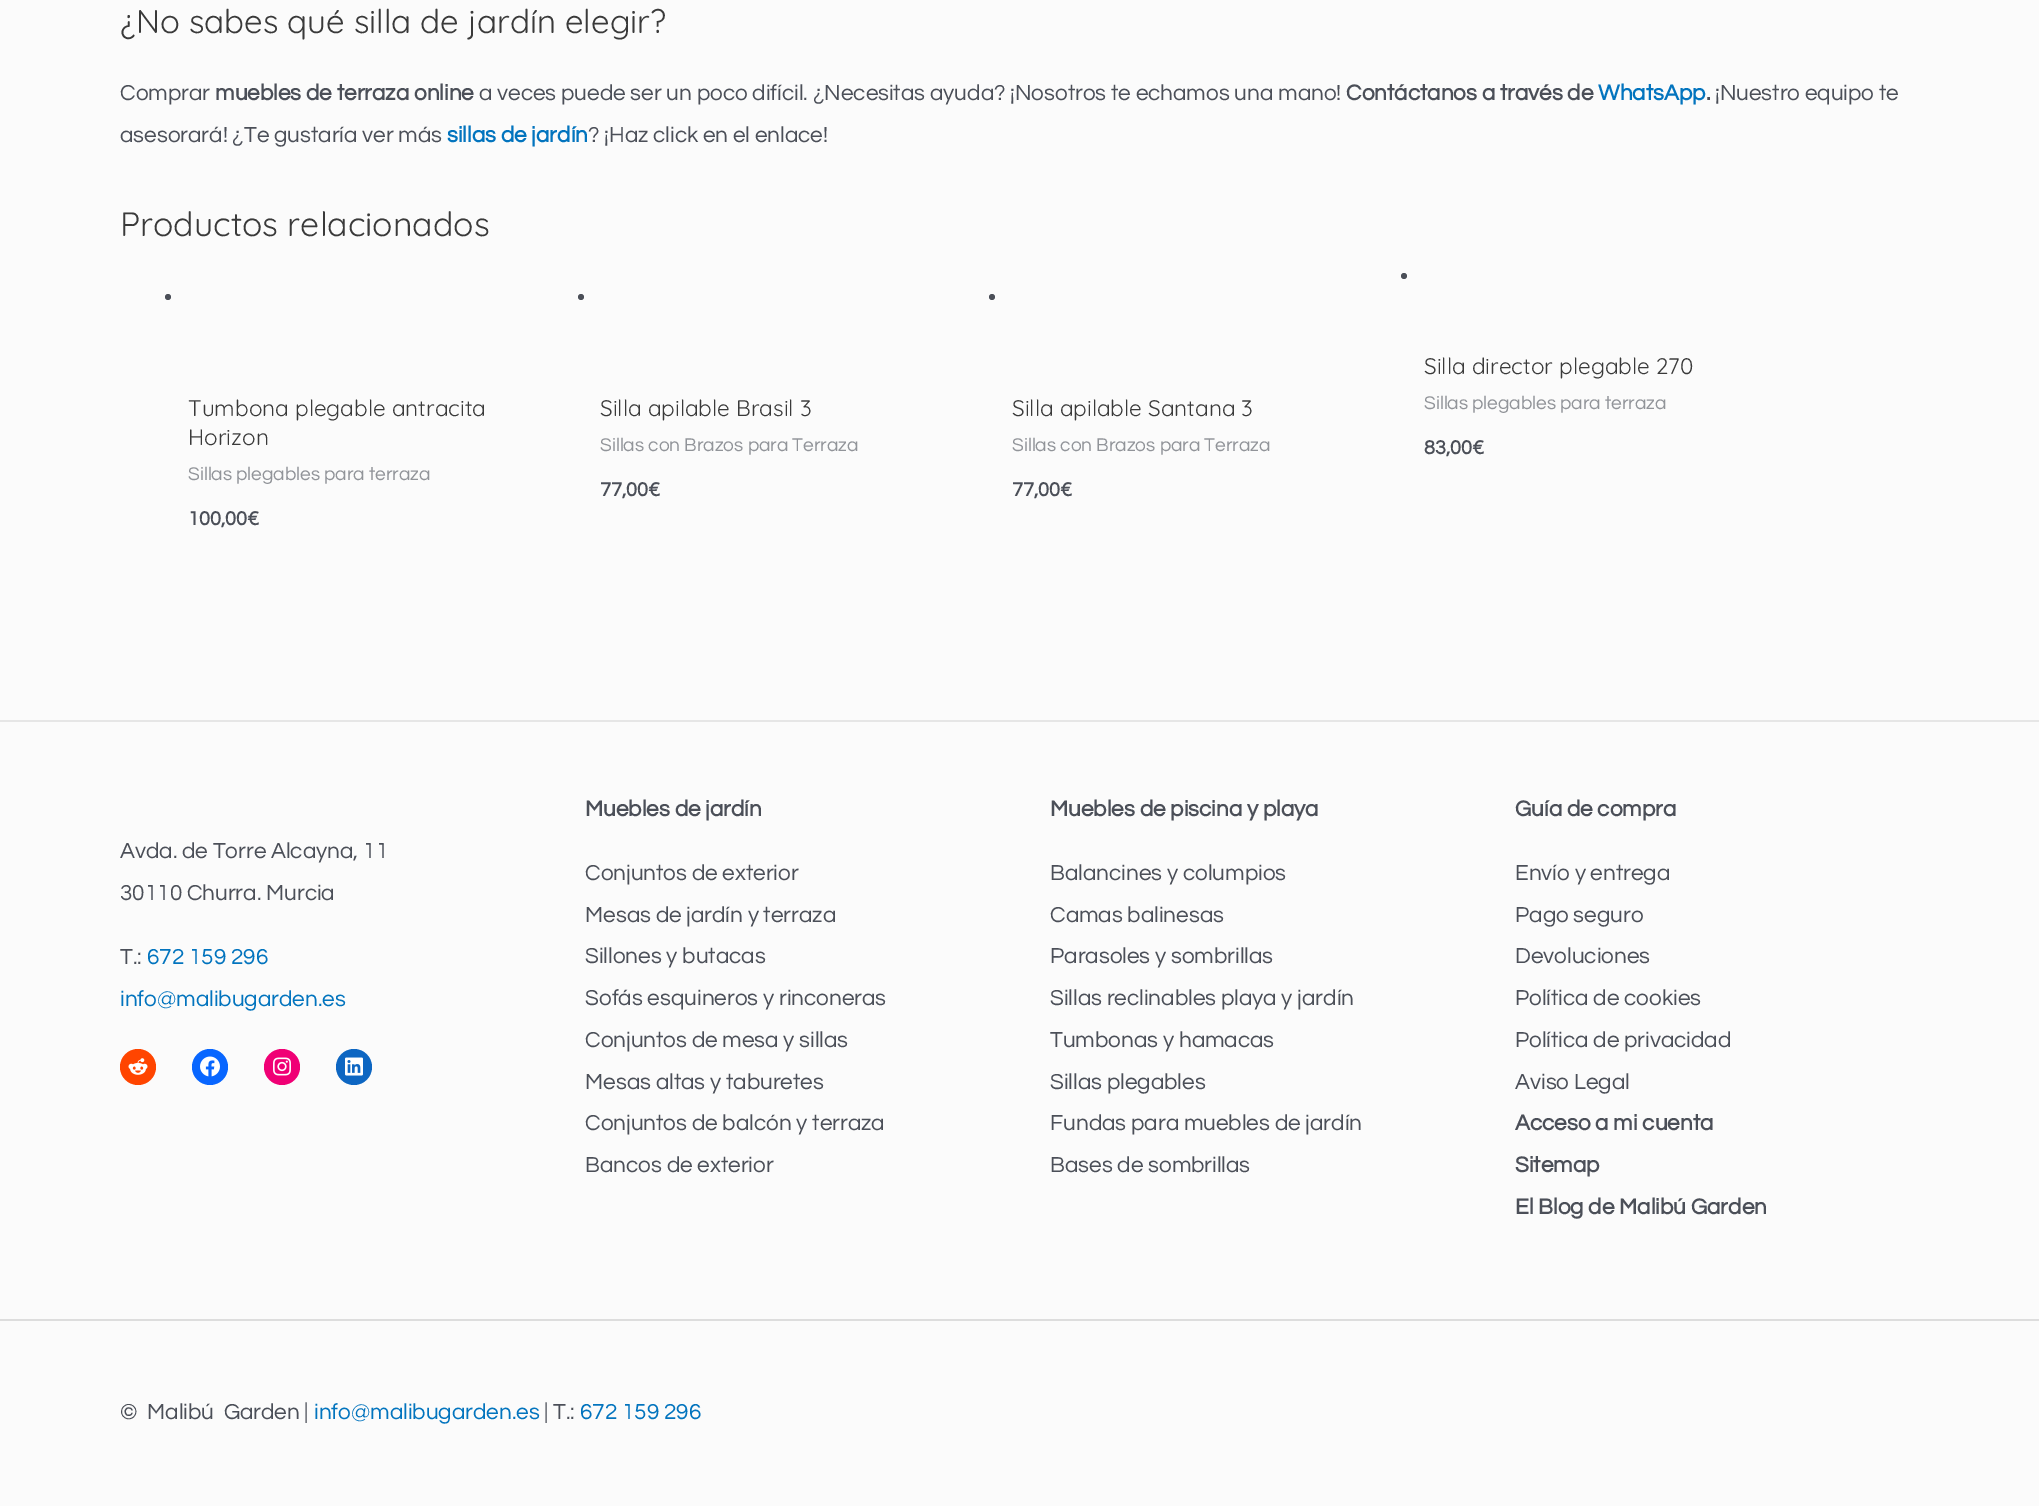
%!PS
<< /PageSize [2039 1506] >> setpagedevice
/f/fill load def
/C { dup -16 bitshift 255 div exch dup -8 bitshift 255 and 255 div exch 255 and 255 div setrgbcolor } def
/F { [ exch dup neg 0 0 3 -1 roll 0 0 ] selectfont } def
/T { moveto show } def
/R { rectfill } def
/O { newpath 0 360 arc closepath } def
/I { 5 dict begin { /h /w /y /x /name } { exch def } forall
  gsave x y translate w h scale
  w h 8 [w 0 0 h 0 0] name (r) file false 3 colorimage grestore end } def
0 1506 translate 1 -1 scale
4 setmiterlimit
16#FBFBFB C
0 0 2039 1506 R
/Quicksand-Light 33 F
16#3A3A3A C
(¿No sabes qué silla de jardín elegir?) 120 33 T
/Questrial-Regular 22.5 F
16#4B4F58 C
(Comprar) 120 100 T
/Questrial-Bold 22.5 F
(muebles de terraza online) 215 100 T
/Questrial-Regular 22.5 F
(a veces puede ser un poco difícil. ¿Necesitas ayuda? ¡Nosotros te echamos una mano!) 479 100 T
/Questrial-Bold 22.5 F
(Contáctanos a través de) 1346 100 T
16#0274BE C
(WhatsApp) 1598 100 T
16#4B4F58 C
(.) 1706 100 T
/Questrial-Regular 22.5 F
(¡Nuestro equipo te) 1715 100 T
(asesorará! ¿Te gustaría ver más) 120 142 T
/Questrial-Bold 22.5 F
16#0274BE C
(sillas de jardín) 447 142 T
/Questrial-Regular 22.5 F
16#4B4F58 C
(? ¡Haz click en el enlace!) 588 142 T
/Quicksand-Light 33.75 F
16#3A3A3A C
(Productos relacionados) 120 236 T
16#4B4F58 C
168 297 3 O f
/Quicksand-Light 22.5 F
16#3A3A3A C
(Tumbona plegable antracita) 188 416 T
(Horizon) 188 445 T
/Questrial-Regular 19.1 F
16#919499 C
(Sillas plegables para terraza) 188 480 T
/Questrial-Bold 20 F
16#4B4F58 C
(100,00€) 188 525 T
581 297 3 O f
/Quicksand-Light 22.5 F
16#3A3A3A C
(Silla apilable Brasil 3) 600 416 T
/Questrial-Regular 19.1 F
16#919499 C
(Sillas con Brazos para Terraza) 600 451 T
/Questrial-Bold 20 F
16#4B4F58 C
(77,00€) 600 496 T
992 297 3 O f
/Quicksand-Light 22.5 F
16#3A3A3A C
(Silla apilable Santana 3) 1012 416 T
/Questrial-Regular 19.1 F
16#919499 C
(Sillas con Brazos para Terraza) 1012 451 T
/Questrial-Bold 20 F
16#4B4F58 C
(77,00€) 1012 496 T
1404 276 3 O f
/Quicksand-Light 22.5 F
16#3A3A3A C
(Silla director plegable 270) 1424 374 T
/Questrial-Regular 19.1 F
16#919499 C
(Sillas plegables para terraza) 1424 409 T
/Questrial-Bold 20 F
16#4B4F58 C
(83,00€) 1424 454 T
16#E6E6E6 C
0 720 2039 2 R
/Questrial-Regular 22.5 F
16#4B4F58 C
(Avda. de Torre Alcayna, 11) 120 858 T
(30110 Churra. Murcia) 120 900 T
(T.:) 120 964 T
16#0274BE C
(672 159 296) 147 964 T
(info@malibugarden.es) 120 1006 T
16#FF4500 C
138 1067 18 O f
(1.rgb) 128 1058 20 17 I
16#0866FF C
210 1067 18 O f
(2.rgb) 200 1056 20 21 I
16#F00075 C
282 1067 18 O f
(3.rgb) 273 1057 18 19 I
16#0D66C2 C
354 1067 18 O f
(4.rgb) 345 1057 18 19 I
/Questrial-Bold 22.5 F
16#4B4F58 C
(Muebles de jardín) 585 816 T
/Questrial-Regular 22.5 F
(Conjuntos de exterior) 585 880 T
(Mesas de jardín y terraza) 585 922 T
(Sillones y butacas) 585 963 T
(Sofás esquineros y rinconeras) 585 1005 T
(Conjuntos de mesa y sillas) 585 1047 T
(Mesas altas y taburetes) 585 1089 T
(Conjuntos de balcón y terraza) 585 1130 T
(Bancos de exterior) 585 1172 T
/Questrial-Bold 22.5 F
(Muebles de piscina y playa) 1050 816 T
/Questrial-Regular 22.5 F
(Balancines y columpios) 1050 880 T
(Camas balinesas) 1050 922 T
(Parasoles y sombrillas) 1050 963 T
(Sillas reclinables playa y jardín) 1050 1005 T
(Tumbonas y hamacas) 1050 1047 T
(Sillas plegables) 1050 1089 T
(Fundas para muebles de jardín) 1050 1130 T
(Bases de sombrillas) 1050 1172 T
/Questrial-Bold 22.5 F
(Guía de compra) 1515 816 T
/Questrial-Regular 22.5 F
(Envío y entrega) 1515 880 T
(Pago seguro) 1515 922 T
(Devoluciones) 1515 963 T
(Política de cookies) 1515 1005 T
(Política de privacidad) 1515 1047 T
(Aviso Legal) 1515 1089 T
/Questrial-Bold 22.5 F
(Acceso a mi cuenta) 1515 1130 T
(Sitemap) 1515 1172 T
(El Blog de Malibú Garden) 1515 1214 T
16#DDDDDD C
0 1319 2039 2 R
/Questrial-Regular 22.5 F
16#4B4F58 C
(©  Malibú  Garden |) 120 1419 T
16#0274BE C
(info@malibugarden.es) 314 1419 T
16#4B4F58 C
(| T.:) 544 1419 T
16#0274BE C
(672 159 296) 580 1419 T
showpage
